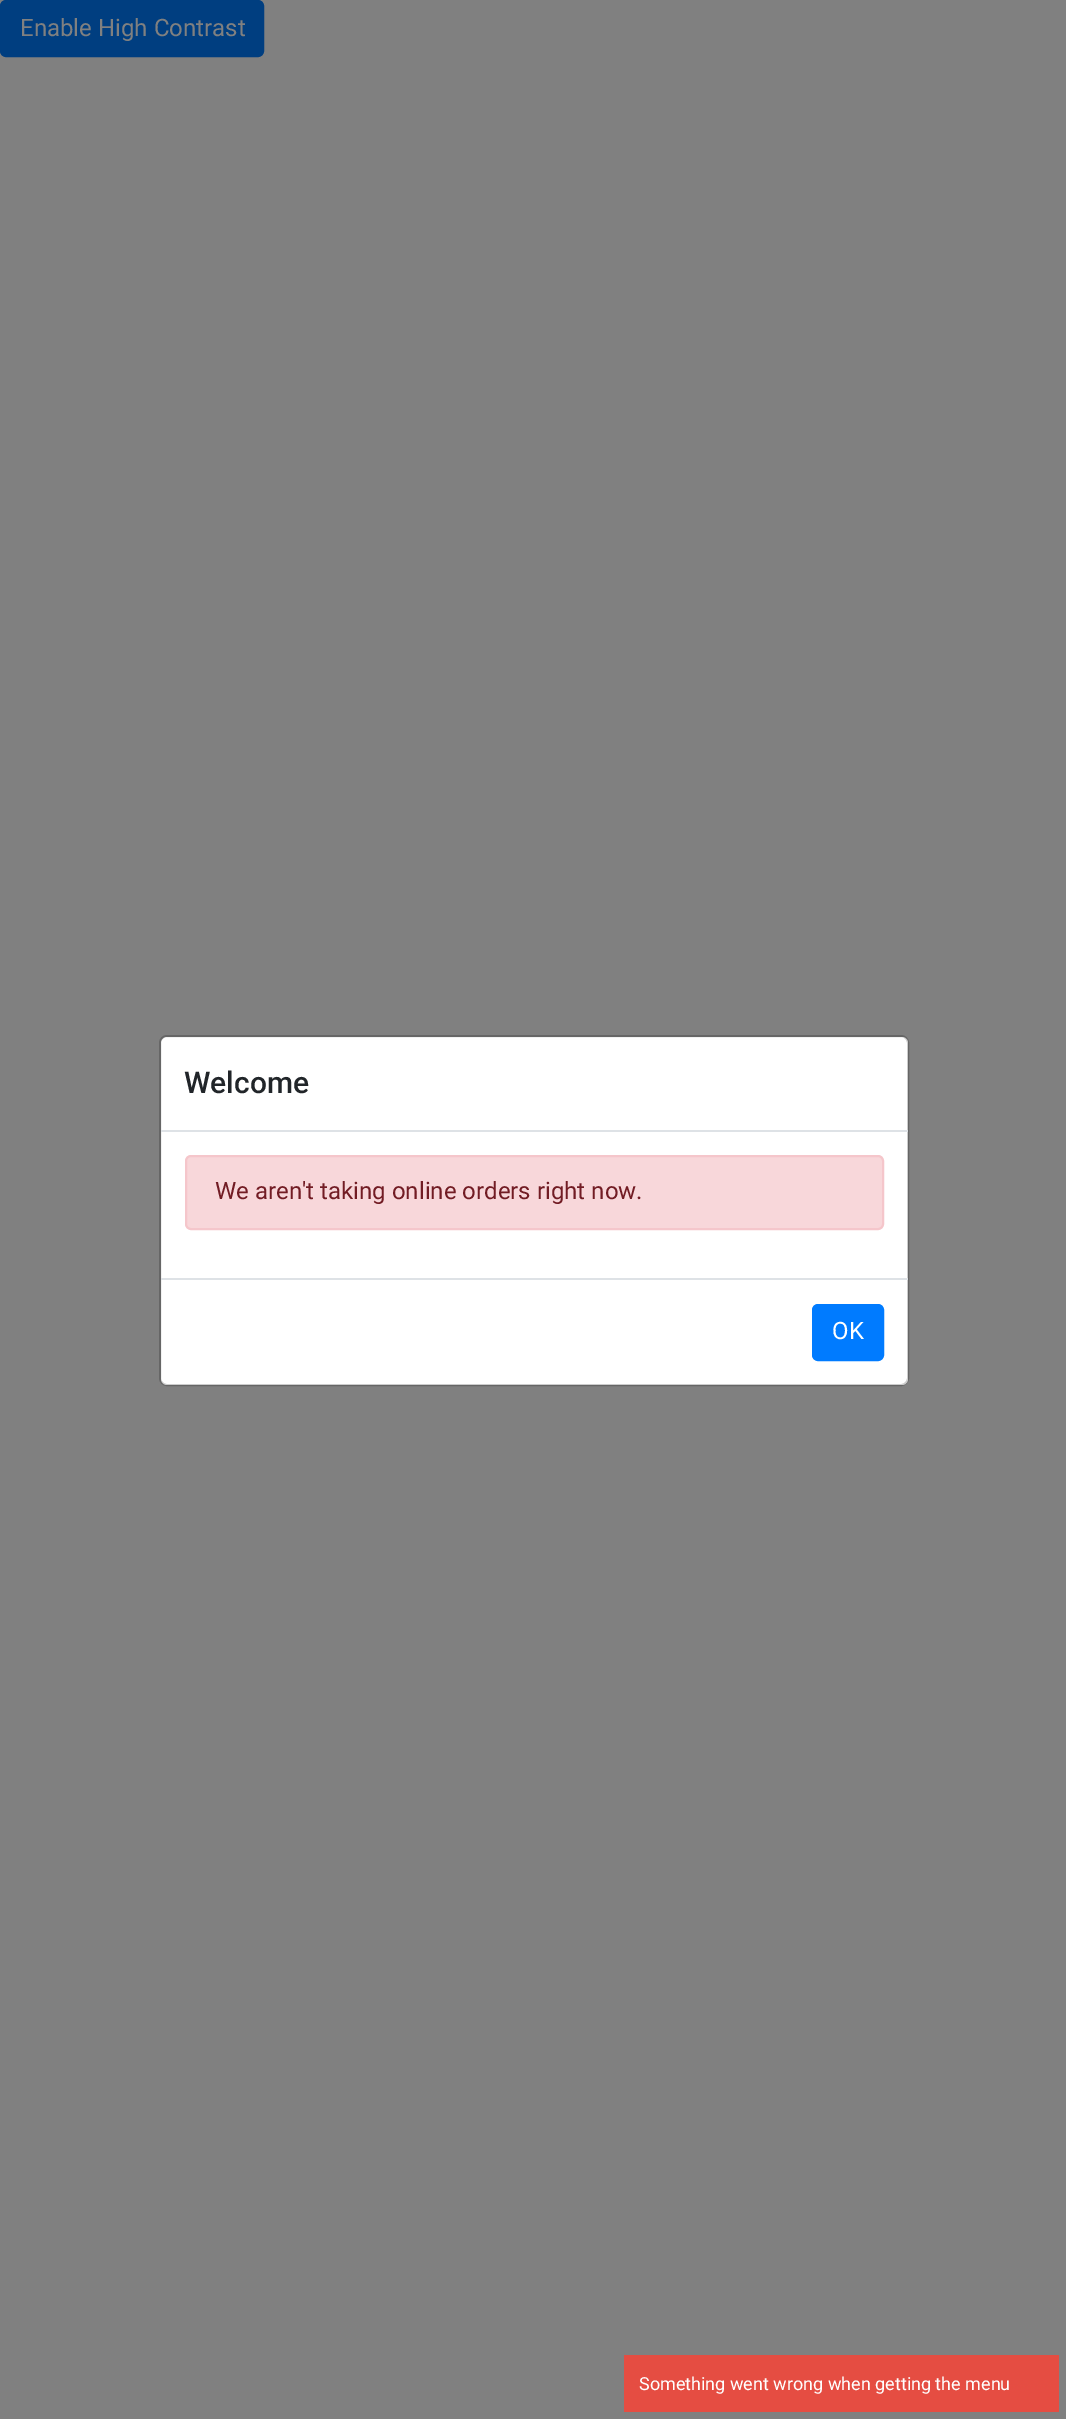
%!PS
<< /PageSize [1066 2419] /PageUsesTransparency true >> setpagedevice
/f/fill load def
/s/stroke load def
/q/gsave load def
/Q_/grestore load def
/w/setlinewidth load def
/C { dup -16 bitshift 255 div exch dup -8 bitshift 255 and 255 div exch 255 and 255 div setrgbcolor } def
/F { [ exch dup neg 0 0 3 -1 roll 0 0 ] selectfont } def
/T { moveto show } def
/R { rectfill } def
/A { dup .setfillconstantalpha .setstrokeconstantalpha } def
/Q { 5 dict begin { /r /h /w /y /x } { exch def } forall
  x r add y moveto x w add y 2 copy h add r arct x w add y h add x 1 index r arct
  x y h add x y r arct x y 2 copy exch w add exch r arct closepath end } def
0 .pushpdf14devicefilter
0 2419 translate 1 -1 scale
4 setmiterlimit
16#808080 C
0 0 1066 2419 R
16#003E80 C
1 1 262 55 5 Q q f Q_
2 w
s
/Roboto-Regular 24 F
16#808080 C
(Enable High Contrast) 20 36 T
16#E54D42 C
624 2355 435 57 R
/Roboto-Regular 18 F
16#FFFFFF C
(Something went wrong when getting the menu) 639 2390 T
161 1037 747 348 6 Q f
0.2 A
16#000000 C
160 1036 748 349 7 Q s
1 A
16#DEE2E6 C
161 1130 747 2 R
/Roboto-Medium 30 F
16#212529 C
(Welcome) 184 1093 T
16#F8D7DA C
186 1156 697 73 5 Q q f Q_
16#F5C6CB C
s
/Roboto-Regular 24 F
16#721C24 C
(We aren't taking online orders right now.) 215 1199 T
16#DEE2E6 C
161 1278 747 2 R
16#007BFF C
813 1305 70 55 5 Q q f Q_
s
16#FFFFFF C
(OK) 832 1339 T
.poppdf14devicefilter showpage
